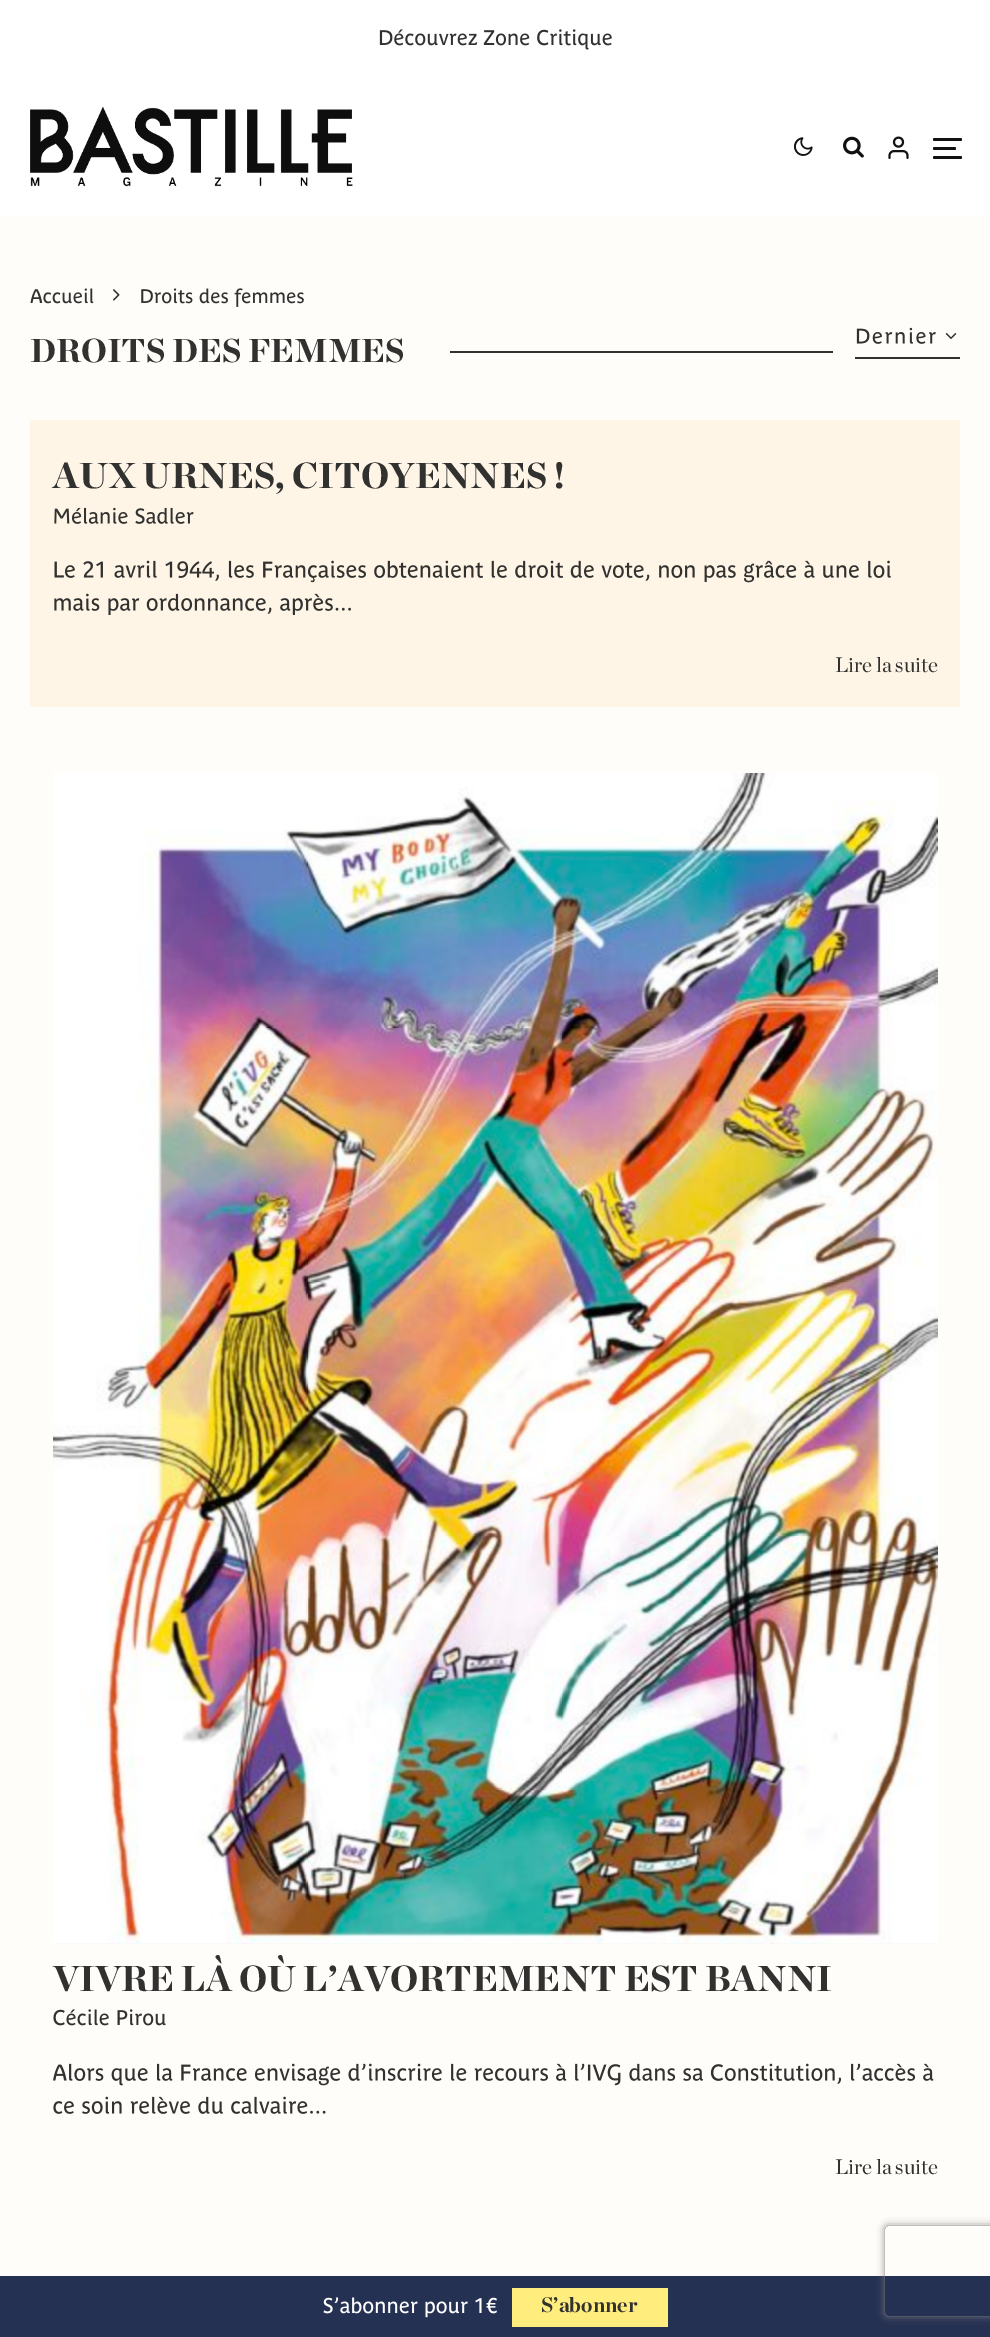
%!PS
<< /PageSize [990 2337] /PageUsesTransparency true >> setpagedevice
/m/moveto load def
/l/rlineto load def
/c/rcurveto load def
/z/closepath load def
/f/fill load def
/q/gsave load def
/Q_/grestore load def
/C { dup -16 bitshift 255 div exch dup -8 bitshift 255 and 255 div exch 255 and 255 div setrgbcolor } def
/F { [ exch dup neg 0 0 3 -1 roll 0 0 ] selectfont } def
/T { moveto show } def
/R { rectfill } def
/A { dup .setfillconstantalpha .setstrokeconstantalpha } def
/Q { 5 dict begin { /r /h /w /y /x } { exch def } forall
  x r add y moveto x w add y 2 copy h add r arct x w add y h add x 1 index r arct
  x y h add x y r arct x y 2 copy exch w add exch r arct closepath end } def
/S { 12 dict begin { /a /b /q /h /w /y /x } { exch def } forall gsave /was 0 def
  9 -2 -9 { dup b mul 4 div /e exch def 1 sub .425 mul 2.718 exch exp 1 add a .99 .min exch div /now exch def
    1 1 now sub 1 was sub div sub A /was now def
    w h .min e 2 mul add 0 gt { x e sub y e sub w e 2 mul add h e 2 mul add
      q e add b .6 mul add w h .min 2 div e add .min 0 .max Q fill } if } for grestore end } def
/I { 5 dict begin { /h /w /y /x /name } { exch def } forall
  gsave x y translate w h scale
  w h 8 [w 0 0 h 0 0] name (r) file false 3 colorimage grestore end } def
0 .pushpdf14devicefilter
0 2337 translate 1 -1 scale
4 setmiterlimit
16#FFFFFF C
0 0 990 2337 R
(1.rgb) 379 29 98 17 I
(2.rgb) 483 29 129 21 I
(3.rgb) 30 107 323 80 I
(4.rgb) 794 137 19 19 I
(5.rgb) 843 136 21 22 I
(6.rgb) 888 136 21 23 I
16#111111 C
933 147 23 3 1.5 Q f
933 138 29 3 1.5 Q f
933 156 29 3 1.5 Q f
16#FFFDFA C
0 216 990 2060 R
(7.rgb) 30 288 64 16 I
(8.rgb) 113 289 7 12 I
(9.rgb) 141 288 163 19 I
/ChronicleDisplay-Black 33 F
16#313130 C
(DROITS DES FEMMES) 30 362 T
450 351 383 2 R
855 357 105 2 R
(10.rgb) 856 327 80 17 I
(11.rgb) 945 333 12 6 I
16#FFF5E7 C
30 420 930 287 R
/ChronicleDisplay-Black 36 F
16#313130 C
(AUX URNES, CITOYENNES !) 53 488 T
(12.rgb) 54 507 140 17 I
(13.rgb) 54 560 837 23 I
(14.rgb) 54 593 297 22 I
/ChronicleDisplay-Regular 21 F
(Lire la suite) 835 672 T
(15.rgb) 53 773 885 1171 I
/ChronicleDisplay-Black 36 F
(VIVRE LÀ OÙ L’AVORTEMENT EST BANNI) 53 1991 T
(16.rgb) 53 2009 113 17 I
(17.rgb) 53 2063 881 23 I
(18.rgb) 53 2096 273 18 I
/ChronicleDisplay-Regular 21 F
(Lire la suite) 835 2174 T
16#253153 C
0 2276 990 61 R
(19.rgb) 323 2297 174 21 I
16#FFEE7D C
512 2288 156 39 R
/ChronicleDisplay-Bold 21 F
16#313130 C
(S’abonner) 541 2312 T
q
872 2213 m 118 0 l 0 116 l -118 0 l z 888 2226 m 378 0 l 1.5 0 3 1.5 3 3 c 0 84 l 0 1.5 -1.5 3 -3 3 c -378 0 l -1.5 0 -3 -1.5 -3 -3 c 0 -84 l 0 -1.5 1.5 -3 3 -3 c z eoclip newpath
16#808080 C
885 2226 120 90 3 4 1 S
Q_
.poppdf14devicefilter showpage
